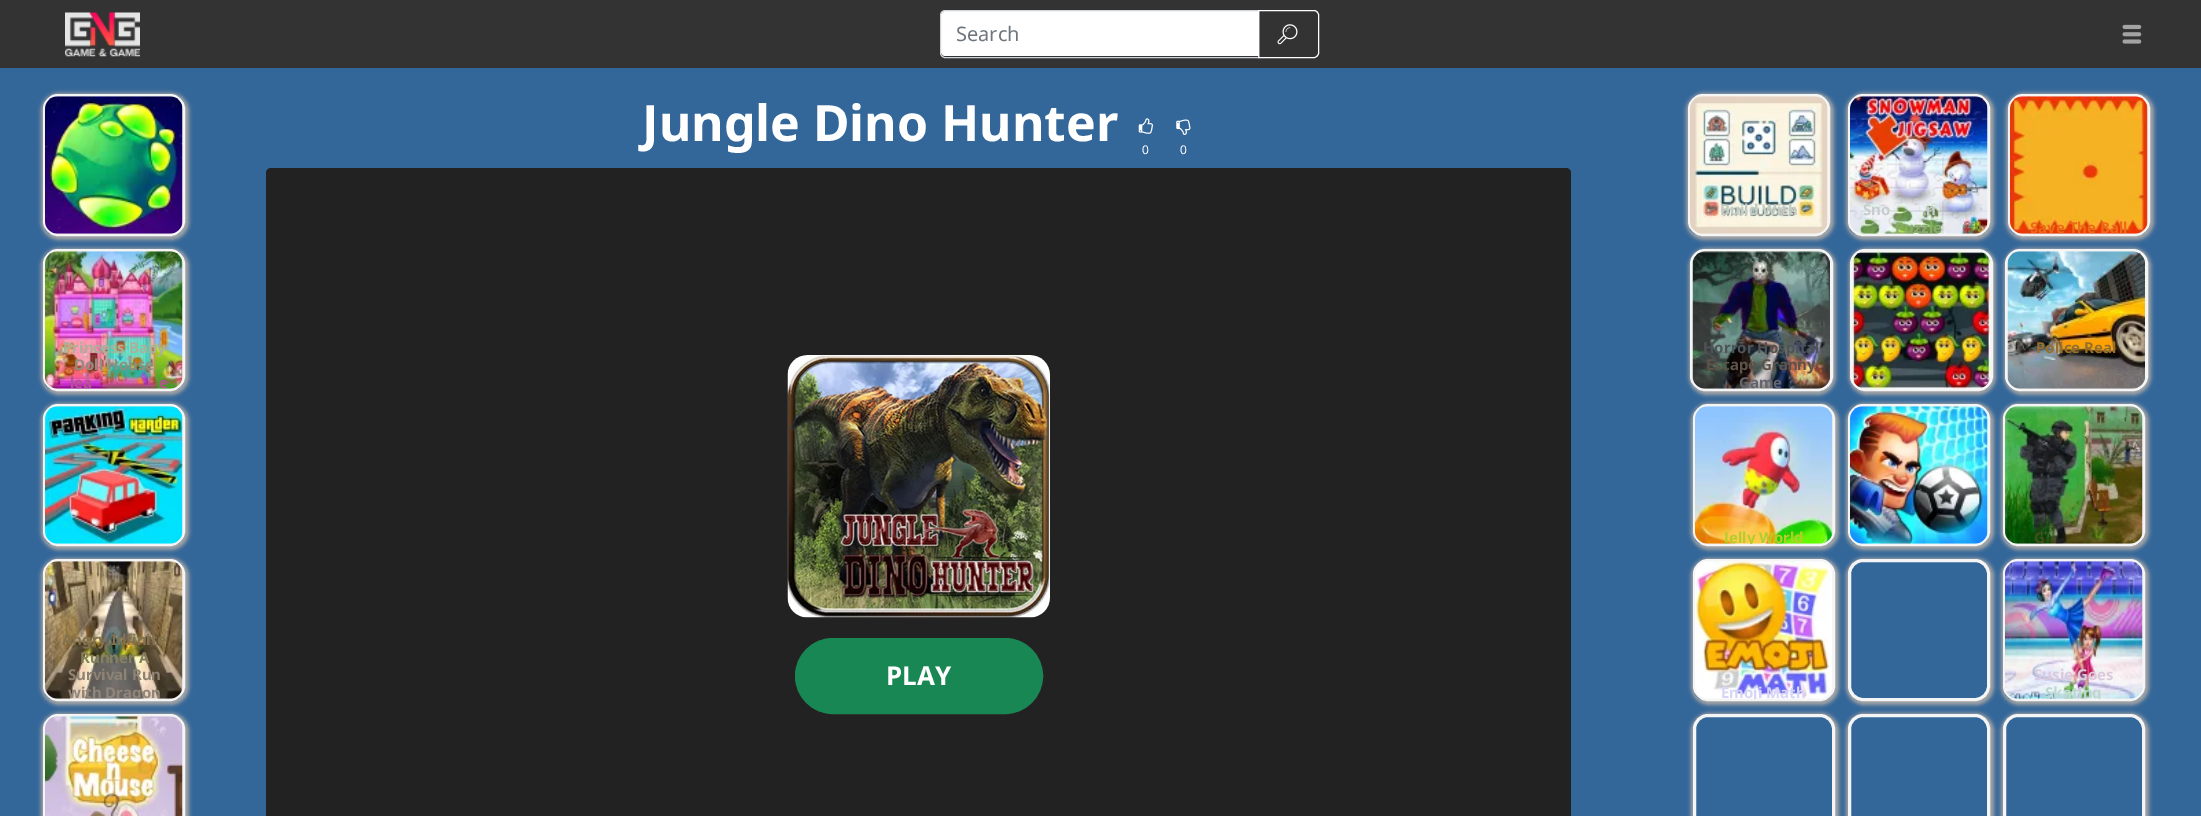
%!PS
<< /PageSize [2201 816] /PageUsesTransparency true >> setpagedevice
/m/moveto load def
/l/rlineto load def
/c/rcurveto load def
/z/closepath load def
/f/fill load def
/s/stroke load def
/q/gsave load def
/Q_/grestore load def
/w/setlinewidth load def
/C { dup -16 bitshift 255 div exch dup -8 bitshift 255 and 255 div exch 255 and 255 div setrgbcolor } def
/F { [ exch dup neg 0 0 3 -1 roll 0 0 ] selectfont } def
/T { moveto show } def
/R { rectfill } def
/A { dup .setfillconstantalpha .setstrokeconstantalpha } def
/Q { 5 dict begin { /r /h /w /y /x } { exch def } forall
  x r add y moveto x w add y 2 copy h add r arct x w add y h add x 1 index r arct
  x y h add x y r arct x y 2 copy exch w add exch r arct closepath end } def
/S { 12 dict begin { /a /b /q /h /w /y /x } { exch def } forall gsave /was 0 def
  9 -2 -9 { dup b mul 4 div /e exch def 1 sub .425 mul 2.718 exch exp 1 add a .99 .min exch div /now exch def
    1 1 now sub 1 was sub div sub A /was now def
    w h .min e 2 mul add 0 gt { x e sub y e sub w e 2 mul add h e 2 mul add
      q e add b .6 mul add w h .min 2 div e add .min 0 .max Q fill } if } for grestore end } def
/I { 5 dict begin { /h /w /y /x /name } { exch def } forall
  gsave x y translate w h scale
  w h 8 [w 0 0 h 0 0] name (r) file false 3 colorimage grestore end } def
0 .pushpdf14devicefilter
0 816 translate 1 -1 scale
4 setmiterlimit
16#336699 C
0 0 2201 816 R
16#333333 C
0 0 2201 68 R
(1.rgb) 65 12 75 45 I
16#FFFFFF C
945 11 m 313 0 l 0 45 l -313 0 l -2 0 -4 -2 -4 -4 c 0 -37 l 0 -2 2 -4 4 -4 c z f
16#CED4DA C
945 10.5 m 313.5 0 l 0 47 l -313.5 0 l -2.5 0 -4.5 -2 -4.5 -4.5 c 0 -38 l 0 -2.5 2 -4.5 4.5 -4.5 c z s
/NotoSans-Regular 20 F
16#6C757D C
(Search) 956 41 T
16#FFFFFF C
1258.5 10.5 m 55.5 0 l 2.5 0 4.5 2 4.5 4.5 c 0 38 l 0 2.5 -2 4.5 -4.5 4.5 c -55.5 0 l z s
(2.rgb) 1277 24 21 21 I
(3.rgb) 2122 24 20 20 I
16#A5A5A5 C
41 93 148 147 18 2 1 S
16#F5F5F5 C
3 w
44.5 95.5 139 139 13.5 Q s
(4.rgb) 45 96 138 138 I
16#A5A5A5 C
41 248 148 147 18 2 1 S
16#F5F5F5 C
44.5 250.5 139 139 13.5 Q s
(5.rgb) 45 251 138 138 I
/NotoSans-Bold 15 F
16#ABB099 C
(Princess Baby) 63 353 T
16#928D7D C
(Doll House) 74 370 T
16#B2538C C
(lea) 70 388 T
(e) 159 388 T
16#A5A5A5 C
41 403 148 147 18 2 1 S
16#F5F5F5 C
44.5 405.5 139 139 13.5 Q s
(6.rgb) 45 406 138 138 I
16#A5A5A5 C
41 558 148 147 18 2 1 S
16#F5F5F5 C
44.5 560.5 139 139 13.5 Q s
(7.rgb) 45 561 138 138 I
16#83724F C
(Angry Infinite) 62 645 T
16#858160 C
(Runner A) 80 663 T
16#8D8273 C
(Survival Run) 68 680 T
q
45 561 138 138 13 Q clip newpath
16#90857A C
(with Dragon) 68 698 T
Q_
16#A5A5A5 C
41 713 148 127 18 2 1 S
16#F5F5F5 C
44.5 715.5 139 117 13.5 Q s
(8.rgb) 45 716 138 100 I
/NotoSans-Bold 50 F
16#FFFFFF C
(Jungle Dino Hunter) 642 141 T
(9.rgb) 1138 118 15 16 I
/NotoSans-Regular 12 F
(0) 1142 154 T
(10.rgb) 1176 119 15 16 I
(0) 1180 154 T
16#222222 C
266 168 1305 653 5 Q f
(11.rgb) 787 355 263 263 I
16#198754 C
795.5 638.5 247 75 37.5 Q q f Q_
1 w
s
/NotoSans-Bold 26 F
16#FFFFFF C
(PLAY) 886 685 T
16#A5A5A5 C
1686 93 148 147 18 2 1 S
16#F5F5F5 C
3 w
1689.5 95.5 139 139 13.5 Q s
(12.rgb) 1690 96 138 138 I
/NotoSans-Bold 15 F
16#C3CBC2 C
(Build With) 1720 215 T
16#A5A5A5 C
1846 93 148 147 18 2 1 S
16#F5F5F5 C
1849.5 95.5 139 139 13.5 Q s
(13.rgb) 1850 96 138 138 I
16#C4CDCF C
(Sno) 1863 215 T
(n) 1926 215 T
16#88AC6B C
(Puzzle) 1895 233 T
16#A5A5A5 C
2006 93 148 147 18 2 1 S
16#F5F5F5 C
2009.5 95.5 139 139 13.5 Q s
(14.rgb) 2010 96 138 138 I
16#ED6A16 C
(Save The Ball) 2030 233 T
16#A5A5A5 C
1689 248 147 147 18 2 1 S
16#F5F5F5 C
1691.5 250.5 140 139 13.5 Q s
(15.rgb) 1692 251 138 138 I
16#4E5458 C
(Horror Hospital) 1703 353 T
16#5E5349 C
(Escape Granny) 1706 370 T
16#63646D C
(Game) 1739 388 T
16#A5A5A5 C
1849 248 147 147 18 2 1 S
16#F5F5F5 C
1851.5 250.5 140 139 13.5 Q s
(16.rgb) 1852 251 138 138 I
16#A5A5A5 C
2004 248 147 147 18 2 1 S
16#F5F5F5 C
2006.5 250.5 140 139 13.5 Q s
(17.rgb) 2007 251 138 138 I
16#966F2C C
(Police Real) 2036 353 T
16#A5A5A5 C
1691 403 148 147 18 2 1 S
16#F5F5F5 C
1694.5 405.5 139 139 13.5 Q s
(18.rgb) 1695 406 138 138 I
q
1695 406 138 138 13 Q clip newpath
16#B5CD2C C
(Jelly World) 1724 543 T
Q_
16#A5A5A5 C
1846 403 148 147 18 2 1 S
16#F5F5F5 C
1849.5 405.5 139 139 13.5 Q s
(19.rgb) 1850 406 138 138 I
16#A5A5A5 C
2001 403 148 147 18 2 1 S
16#F5F5F5 C
2004.5 405.5 139 139 13.5 Q s
(20.rgb) 2005 406 138 138 I
16#424E18 C
(G) 2034 543 T
16#A5A5A5 C
1691 558 148 147 18 2 1 S
16#F5F5F5 C
1694.5 560.5 139 139 13.5 Q s
(21.rgb) 1695 561 137 138 I
q
1695 561 138 138 13 Q clip newpath
16#D7D5F7 C
(Emoji Math) 1721 698 T
Q_
q
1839 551 m 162 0 l 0 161 l -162 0 l z 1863 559 m 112 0 l 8.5 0 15 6.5 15 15 c 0 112 l 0 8.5 -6.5 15 -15 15 c -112 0 l -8.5 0 -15 -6.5 -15 -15 c 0 -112 l 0 -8.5 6.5 -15 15 -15 c z eoclip newpath
16#A5A5A5 C
1846 558 148 147 18 2 1 S
Q_
1849.5 560.5 139 139 13.5 Q s
16#A5A5A5 C
2001 558 148 147 18 2 1 S
16#F5F5F5 C
2004.5 560.5 139 139 13.5 Q s
(22.rgb) 2005 561 138 138 I
16#DCC9DC C
(Susie Goes) 2034 680 T
q
2005 561 138 138 13 Q clip newpath
16#BDD7D2 C
(Skating) 2045 698 T
Q_
q
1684 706 m 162 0 l 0 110 l -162 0 l z 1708 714 m 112 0 l 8.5 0 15 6.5 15 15 c 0 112 l 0 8.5 -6.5 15 -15 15 c -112 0 l -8.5 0 -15 -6.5 -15 -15 c 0 -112 l 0 -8.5 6.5 -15 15 -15 c z eoclip newpath
16#A5A5A5 C
1691 713 148 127 18 2 1 S
Q_
16#F5F5F5 C
1694.5 715.5 139 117 13.5 Q s
q
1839 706 m 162 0 l 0 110 l -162 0 l z 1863 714 m 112 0 l 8.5 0 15 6.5 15 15 c 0 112 l 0 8.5 -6.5 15 -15 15 c -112 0 l -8.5 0 -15 -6.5 -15 -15 c 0 -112 l 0 -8.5 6.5 -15 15 -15 c z eoclip newpath
16#A5A5A5 C
1846 713 148 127 18 2 1 S
Q_
1849.5 715.5 139 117 13.5 Q s
q
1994 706 m 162 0 l 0 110 l -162 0 l z 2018 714 m 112 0 l 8.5 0 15 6.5 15 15 c 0 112 l 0 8.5 -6.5 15 -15 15 c -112 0 l -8.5 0 -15 -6.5 -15 -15 c 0 -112 l 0 -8.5 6.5 -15 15 -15 c z eoclip newpath
16#A5A5A5 C
2001 713 148 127 18 2 1 S
Q_
2004.5 715.5 139 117 13.5 Q s
.poppdf14devicefilter showpage
